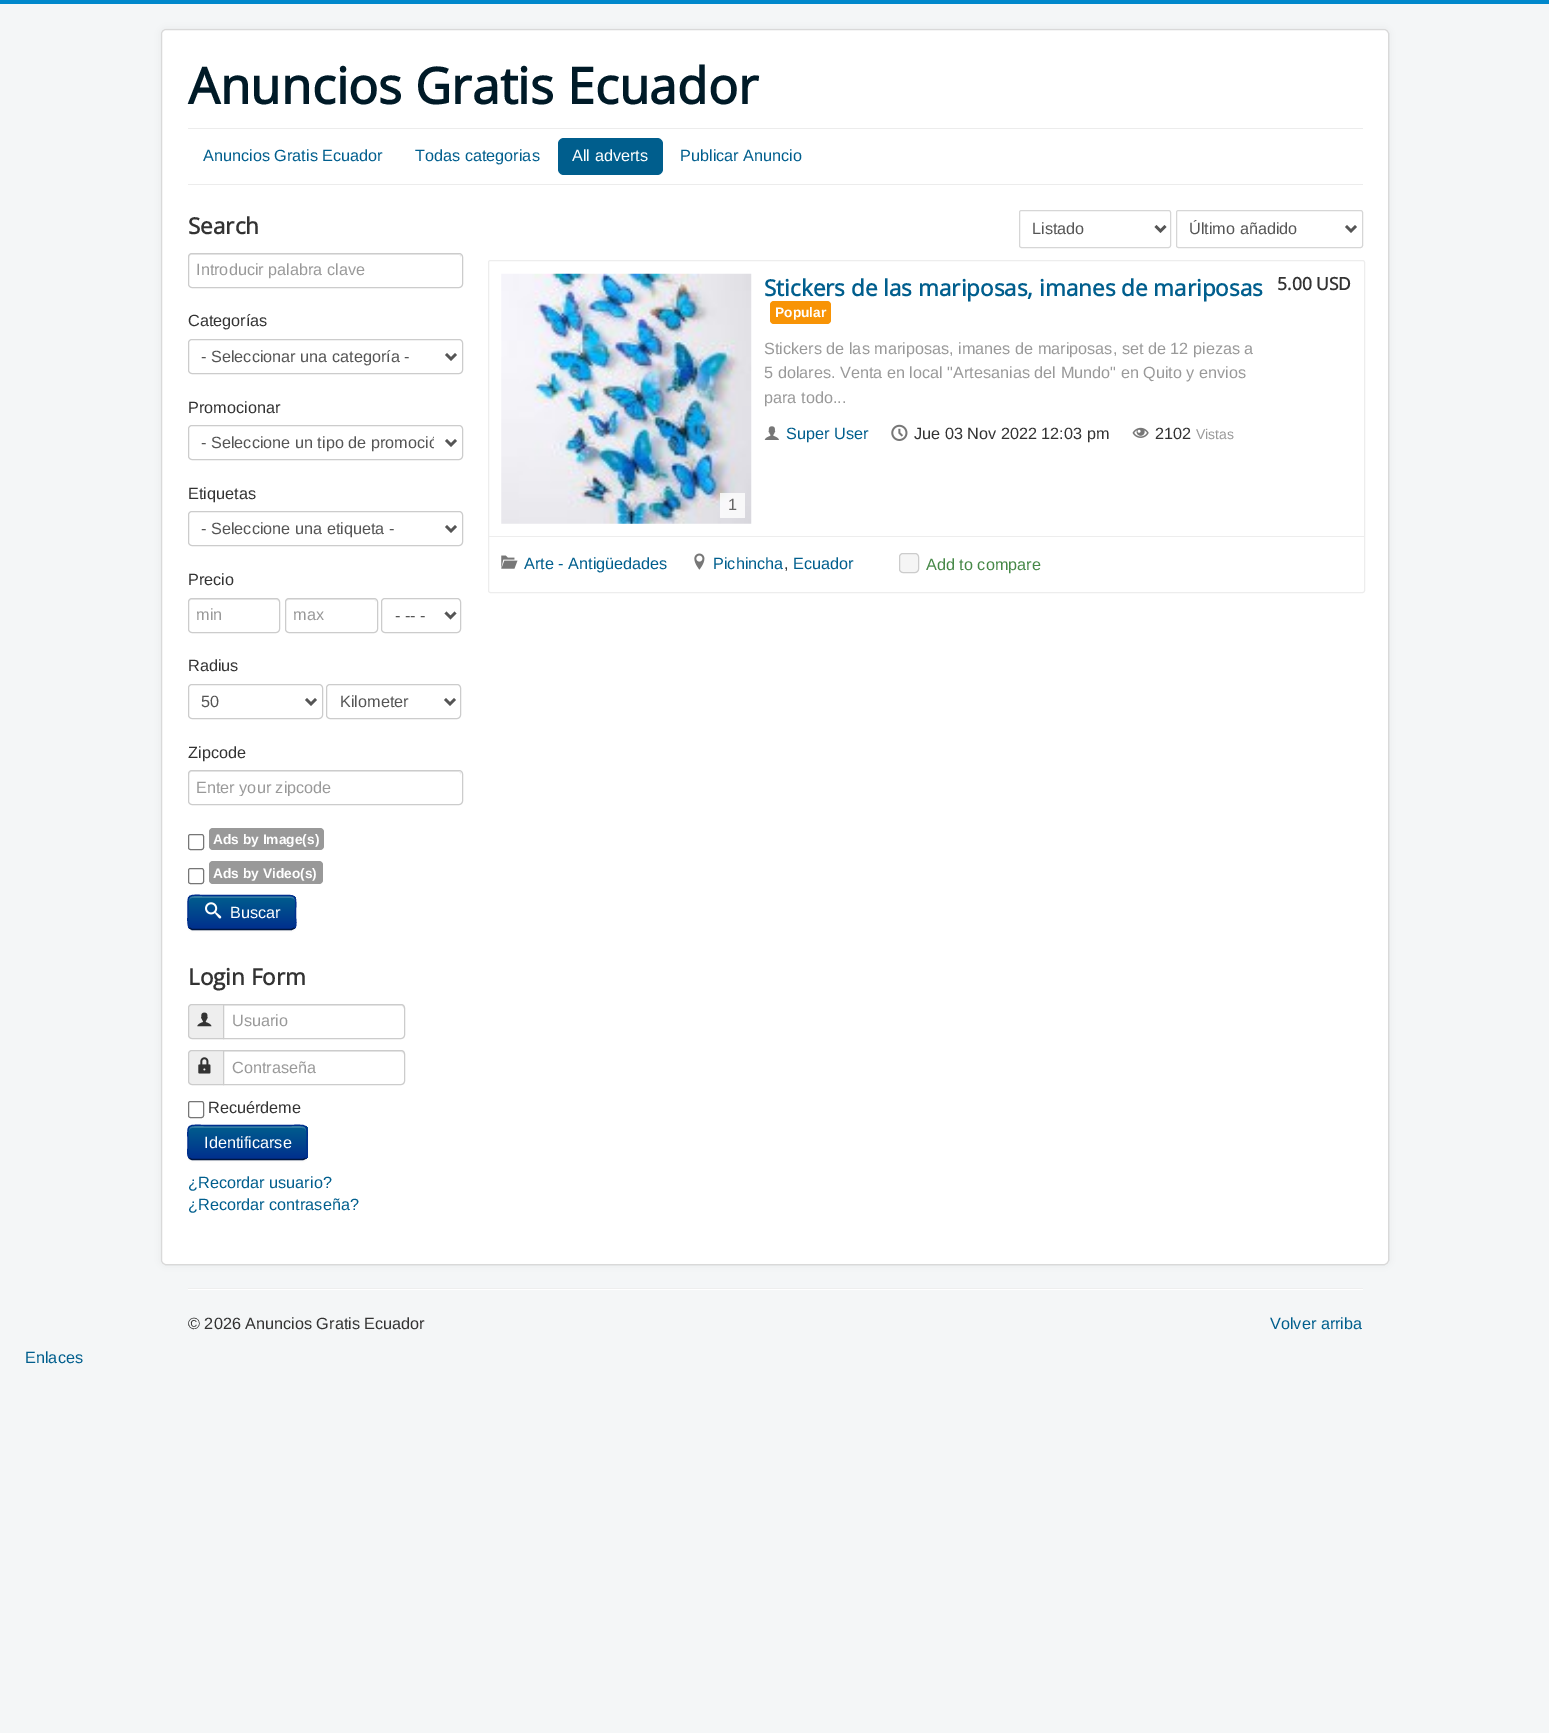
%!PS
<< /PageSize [1549 1733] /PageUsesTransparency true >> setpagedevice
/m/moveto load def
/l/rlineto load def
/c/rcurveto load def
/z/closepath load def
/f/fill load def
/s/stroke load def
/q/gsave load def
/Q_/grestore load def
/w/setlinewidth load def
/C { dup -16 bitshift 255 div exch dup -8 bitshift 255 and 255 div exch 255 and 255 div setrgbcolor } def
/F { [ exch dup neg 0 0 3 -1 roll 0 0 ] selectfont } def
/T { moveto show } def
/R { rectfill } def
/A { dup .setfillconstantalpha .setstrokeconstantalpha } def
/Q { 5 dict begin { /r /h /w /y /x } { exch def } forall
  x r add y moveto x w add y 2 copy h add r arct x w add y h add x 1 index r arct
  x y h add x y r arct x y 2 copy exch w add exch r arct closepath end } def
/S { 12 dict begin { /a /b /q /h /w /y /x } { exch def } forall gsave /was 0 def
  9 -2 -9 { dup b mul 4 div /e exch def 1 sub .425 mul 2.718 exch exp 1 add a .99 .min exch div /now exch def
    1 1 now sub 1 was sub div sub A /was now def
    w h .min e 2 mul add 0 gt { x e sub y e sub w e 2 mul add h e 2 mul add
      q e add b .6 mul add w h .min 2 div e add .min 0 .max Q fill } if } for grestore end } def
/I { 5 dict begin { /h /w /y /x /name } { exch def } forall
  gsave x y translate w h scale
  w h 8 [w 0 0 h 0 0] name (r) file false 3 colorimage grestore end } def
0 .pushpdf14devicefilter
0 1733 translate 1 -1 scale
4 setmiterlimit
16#F4F6F7 C
0 0 1549 1733 R
16#0088CC C
0 0 1549 4 R
16#000000 C
161 29 1228 1236 5 4 .05 S
16#FFFFFF C
161 29 1228 1236 5 Q f
0.15 A
16#000000 C
161.5 29.5 1227 1235 4.5 Q s
/OpenSans-Bold 50 F
1 A
16#001A27 C
(Anuncios Gratis Ecuador) 188 104 T
16#ECECEC C
188 128 1175 1 R
188 184 1175 1 R
/LiberationSans-Regular 16.25 F
16#005E8D C
(Anuncios Gratis Ecuador) 203 161 T
(Todas categorias) 415 161 T
558 138 105 37 6 Q f
16#FFFFFF C
(All adverts) 572 161 T
16#005E8D C
(Publicar Anuncio) 680 161 T
/OpenSans-Bold 22.5 F
16#333333 C
(Search) 188 234 T
16#ECECEC C
191 255 m 268 0 l 1 0 2 1 2 3 c 0 -2 l 0 -1 -1 -2 -3 -2 c -266 0 l -2 0 -3 1 -3 2 c 0 2 l 0 -2 1 -3 2 -3 c z f
16#CCCCCC C
188.5 253.5 274 34 3.5 Q s
/LiberationSans-Regular 16.25 F
16#999999 C
(Introducir palabra clave) 196 275 T
16#333333 C
(Categorías) 188 326 T
16#CCCCCC C
188.5 339.5 274 34 3.5 Q s
16#555555 C
2.5 w
446 354 m 5 5 l 5 -5 l s
(- Seleccionar una categoría -) 201 362 T
16#333333 C
(Promocionar) 188 413 T
16#CCCCCC C
1 w
188.5 425.5 274 34 3.5 Q s
16#555555 C
2.5 w
446 440 m 5 5 l 5 -5 l s
q
201 433 233 21 rectclip
(- Seleccione un tipo de promoció) 201 448 T
Q_
16#333333 C
(Etiquetas) 188 499 T
16#CCCCCC C
1 w
188.5 511.5 274 34 3.5 Q s
16#555555 C
2.5 w
446 526 m 5 5 l 5 -5 l s
(- Seleccione una etiqueta -) 201 534 T
16#333333 C
(Precio) 188 585 T
16#ECECEC C
191 600 m 85 0 l 2 0 3 1 3 2 c 0 -1 -1 -3 -2 -3 c -85 0 l -2 0 -3 1 -3 3 c 0 -1 1 -2 2 -2 c z f
16#CCCCCC C
1 w
188.5 598.5 91 34 3.5 Q s
16#999999 C
(min) 196 620 T
16#ECECEC C
289 600 m 85 0 l 1 0 2 1 2 2 c 0 -1 -1 -3 -2 -3 c -86 0 l -1 0 -2 1 -2 3 c 0 -1 1 -2 3 -2 c z f
16#CCCCCC C
285.5 598.5 92 34 3.5 Q s
16#999999 C
(max) 293 620 T
16#CCCCCC C
381.5 598.5 79 34 3.5 Q s
16#555555 C
2.5 w
445.5 612.5 m 5 5 l 5 -5 l s
(- -- -) 395 621 T
16#333333 C
(Radius) 188 671 T
16#CCCCCC C
1 w
188.5 684.5 134 34 3.5 Q s
16#555555 C
2.5 w
306 699 m 5 5 l 5 -5 l s
(50) 201 707 T
16#CCCCCC C
1 w
326.5 684.5 134 34 3.5 Q s
16#555555 C
2.5 w
445 699 m 5 5 l 5 -5 l s
(Kilometer) 340 707 T
16#333333 C
(Zipcode) 188 758 T
16#ECECEC C
191 772 m 268 0 l 1 0 2 2 2 3 c 0 -1 l 0 -2 -1 -3 -3 -3 c -266 0 l -2 0 -3 1 -3 3 c 0 1 l 0 -1 1 -3 2 -3 c z f
16#CCCCCC C
1 w
188.5 770.5 274 34 3.5 Q s
q
196 778 258 18 rectclip
16#999999 C
(Enter your zipcode) 196 793 T
Q_
16#767676 C
188.5 834.5 15 15 2 Q s
16#999999 C
209 828 115 22 4 Q f
/LiberationSans-Bold 13.75 F
16#FFFFFF C
(Ads by Image\(s\)) 213 844 T
16#767676 C
188.5 868.5 15 15 2 Q s
16#999999 C
209 861 114 23 4 Q f
16#FFFFFF C
(Ads by Video\(s\)) 213 878 T
16#000000 C
188 896 108 35 5 1 .05 S
q
188 895 108 35 5 Q clip newpath
q 188 896 m 108 0 l 0 33 l -108 0 l z clip newpath
<< /ShadingType 2 /ColorSpace /DeviceRGB /Coords [242 896 242 929] /Extend [true true] /Function << /FunctionType 2 /Domain [0 1] /C0 [0 .369 .553] /C1 [0 .184 .553] /N 1 >> >> shfill Q_
Q_
0.2 A
16#FFFFFF C
192 898 m 99 0 l 2 0 4 1 4 3 c 0 -9 -16 -5 -20 -5 c -66 0 l -4 0 -20 -4 -20 5 c 0 -2 1 -3 3 -3 c z f
1 A
16#001641 C
1.2 w
294.5 928 m -3 1.5 l -99.5 0 l -2.5 -1.5 l s
16#002F8D C
189.5 928 m -2.5 -2.5 -1.5 -12.5 -1.5 -15.5 c 0 -20.5 -2 -17 21 -17 c 66 0 l 24.5 0 20.5 -3 20.5 21 c 0 3.5 1.5 9 -1 11.5 c s
(1.rgb) 205 902 17 17 I
/LiberationSans-Regular 16.25 F
16#FFFFFF C
(Buscar) 230 918 T
/OpenSans-Bold 22.5 F
16#333333 C
(Login Form) 188 985 T
16#EEEEEE C
192 1004.5 m 31.5 0 l 0 34 l -31.5 0 l -2 0 -3.5 -1.5 -3.5 -3.5 c 0 -27 l 0 -2 1.5 -3.5 3.5 -3.5 c z q f Q_
16#CCCCCC C
1 w
s
(2.rgb) 197 1012 15 15 I
16#FFFFFF C
223 1004 m 178 0 l 2 0 4 2 4 4 c 0 27 l 0 2 -2 4 -4 4 c -178 0 l z f
16#ECECEC C
224 1006 m 178 0 l 1 1 l 1 2 l 0 -2 0 -4 -2 -4 c -178 0 l z f
16#CCCCCC C
223.5 1004.5 m 177.5 0 l 2 0 3.5 1.5 3.5 3.5 c 0 27 l 0 2 -1.5 3.5 -3.5 3.5 c -177.5 0 l z s
/LiberationSans-Regular 16.25 F
16#999999 C
(Usuario) 232 1026 T
16#EEEEEE C
192 1050.5 m 31.5 0 l 0 34 l -31.5 0 l -2 0 -3.5 -1.5 -3.5 -3.5 c 0 -27 l 0 -2 1.5 -3.5 3.5 -3.5 c z q f Q_
16#CCCCCC C
s
(3.rgb) 198 1057 13 17 I
16#FFFFFF C
223 1050 m 178 0 l 2 0 4 2 4 4 c 0 27 l 0 2 -2 4 -4 4 c -178 0 l z f
16#ECECEC C
224 1052 m 177 0 l 2 0 3 2 3 3 c 0 -2 0 -4 -2 -4 c -178 0 l z f
16#CCCCCC C
223.5 1050.5 m 177.5 0 l 2 0 3.5 1.5 3.5 3.5 c 0 27 l 0 2 -1.5 3.5 -3.5 3.5 c -177.5 0 l z s
16#999999 C
(Contraseña) 232 1073 T
16#767676 C
188.5 1101.5 15 16 2 Q s
16#333333 C
(Recuérdeme) 208 1113 T
16#000000 C
188 1126 120 35 5 1 .05 S
q
188 1125 120 35 5 Q clip newpath
q 188 1126 m 120 0 l 0 33 l -120 0 l z clip newpath
<< /ShadingType 2 /ColorSpace /DeviceRGB /Coords [248 1126 248 1159] /Extend [true true] /Function << /FunctionType 2 /Domain [0 1] /C0 [0 .369 .553] /C1 [0 .184 .553] /N 1 >> >> shfill Q_
Q_
0.2 A
16#FFFFFF C
192 1128 m 110 0 l 3 0 4 1 4 3 c 0 -10 -19 -5 -22 -5 c -73 0 l -3 0 -22 -5 -22 5 c 0 -2 1 -3 3 -3 c z f
1 A
16#001641 C
1.2 w
305.5 1158 m -.5 1 -2 1.5 -3 1.5 c -110 0 l -1 0 -2.5 -.5 -3 -1.5 c s
16#002F8D C
189.5 1158 m -3 -2.5 -1.5 -8 -1.5 -11.5 c 0 -25 -4 -21 23 -21 c 73 0 l 27 0 23 -4 23 21 c 0 3.5 1.5 9 -1.5 11.5 c s
16#FFFFFF C
(Identificarse) 204 1148 T
16#005E8D C
(¿Recordar usuario?) 188 1188 T
(¿Recordar contraseña?) 188 1210 T
16#D6D6D6 C
1 w
1019.5 210.5 151 37 2 Q s
16#555555 C
2.5 w
1155.5 226 m 5 5 l 5 -5 l s
(Listado) 1032 234 T
16#D6D6D6 C
1 w
1176.5 210.5 186 37 2 Q s
16#555555 C
2.5 w
1346 226 m 5 5 l 5 -5 l s
(Último añadido) 1189 234 T
16#EDEDED C
1 w
488.5 260.5 876 332 2 Q s
/OpenSans-Bold 22.5 F
16#005E8D C
(Stickers de las mariposas, imanes de mariposas) 764 296 T
16#F89406 C
770 301 61 23 4 Q f
/LiberationSans-Bold 13.75 F
16#FFFFFF C
(Popular) 775 317 T
/LiberationSans-Regular 16.25 F
16#999999 C
(Stickers de las mariposas, imanes de mariposas, set de 12 piezas a) 764 354 T
(5 dolares. Venta en local "Artesanias del Mundo" en Quito y envios) 764 378 T
(para todo...) 764 403 T
(4.rgb) 764 426 15 14 I
16#005E8D C
(Super User) 786 439 T
(5.rgb) 891 424 17 17 I
16#333333 C
(Jue 03 Nov 2022 12:03 pm) 914 439 T
(6.rgb) 1132 427 17 11 I
(2102) 1155 439 T
/LiberationSans-Regular 14 F
16#999999 C
(Vistas) 1196 439 T
/OpenSans-Bold 17.5 F
16#333333 C
(5.00 USD) 1277 290 T
(7.rgb) 501 273 251 251 I
0.8 A
16#FFFFFF C
720 493 25 25 R
/LiberationSans-Regular 16.25 F
1 A
16#666666 C
(1) 728 510 T
16#EDEDED C
489 536 875 1 R
(8.rgb) 501 555 17 14 I
16#005E8D C
(Arte - Antigüedades) 524 569 T
(9.rgb) 694 553 11 17 I
(Pichincha) 713 569 T
16#333333 C
(,) 784 569 T
16#005E8D C
(Ecuador) 793 569 T
16#F5F5F5 C
899.5 553.5 19 19 3.5 Q q f Q_
16#CCCCCC C
s
16#468847 C
(Add to compare) 926 570 T
16#EEEEEE C
188 1288 1175 1 R
16#FFFFFF C
188 1289 1175 1 R
16#333333 C
(© 2026 Anuncios Gratis Ecuador) 188 1329 T
16#005E8D C
(Volver arriba) 1270 1329 T
(Enlaces) 25 1363 T
.poppdf14devicefilter showpage
